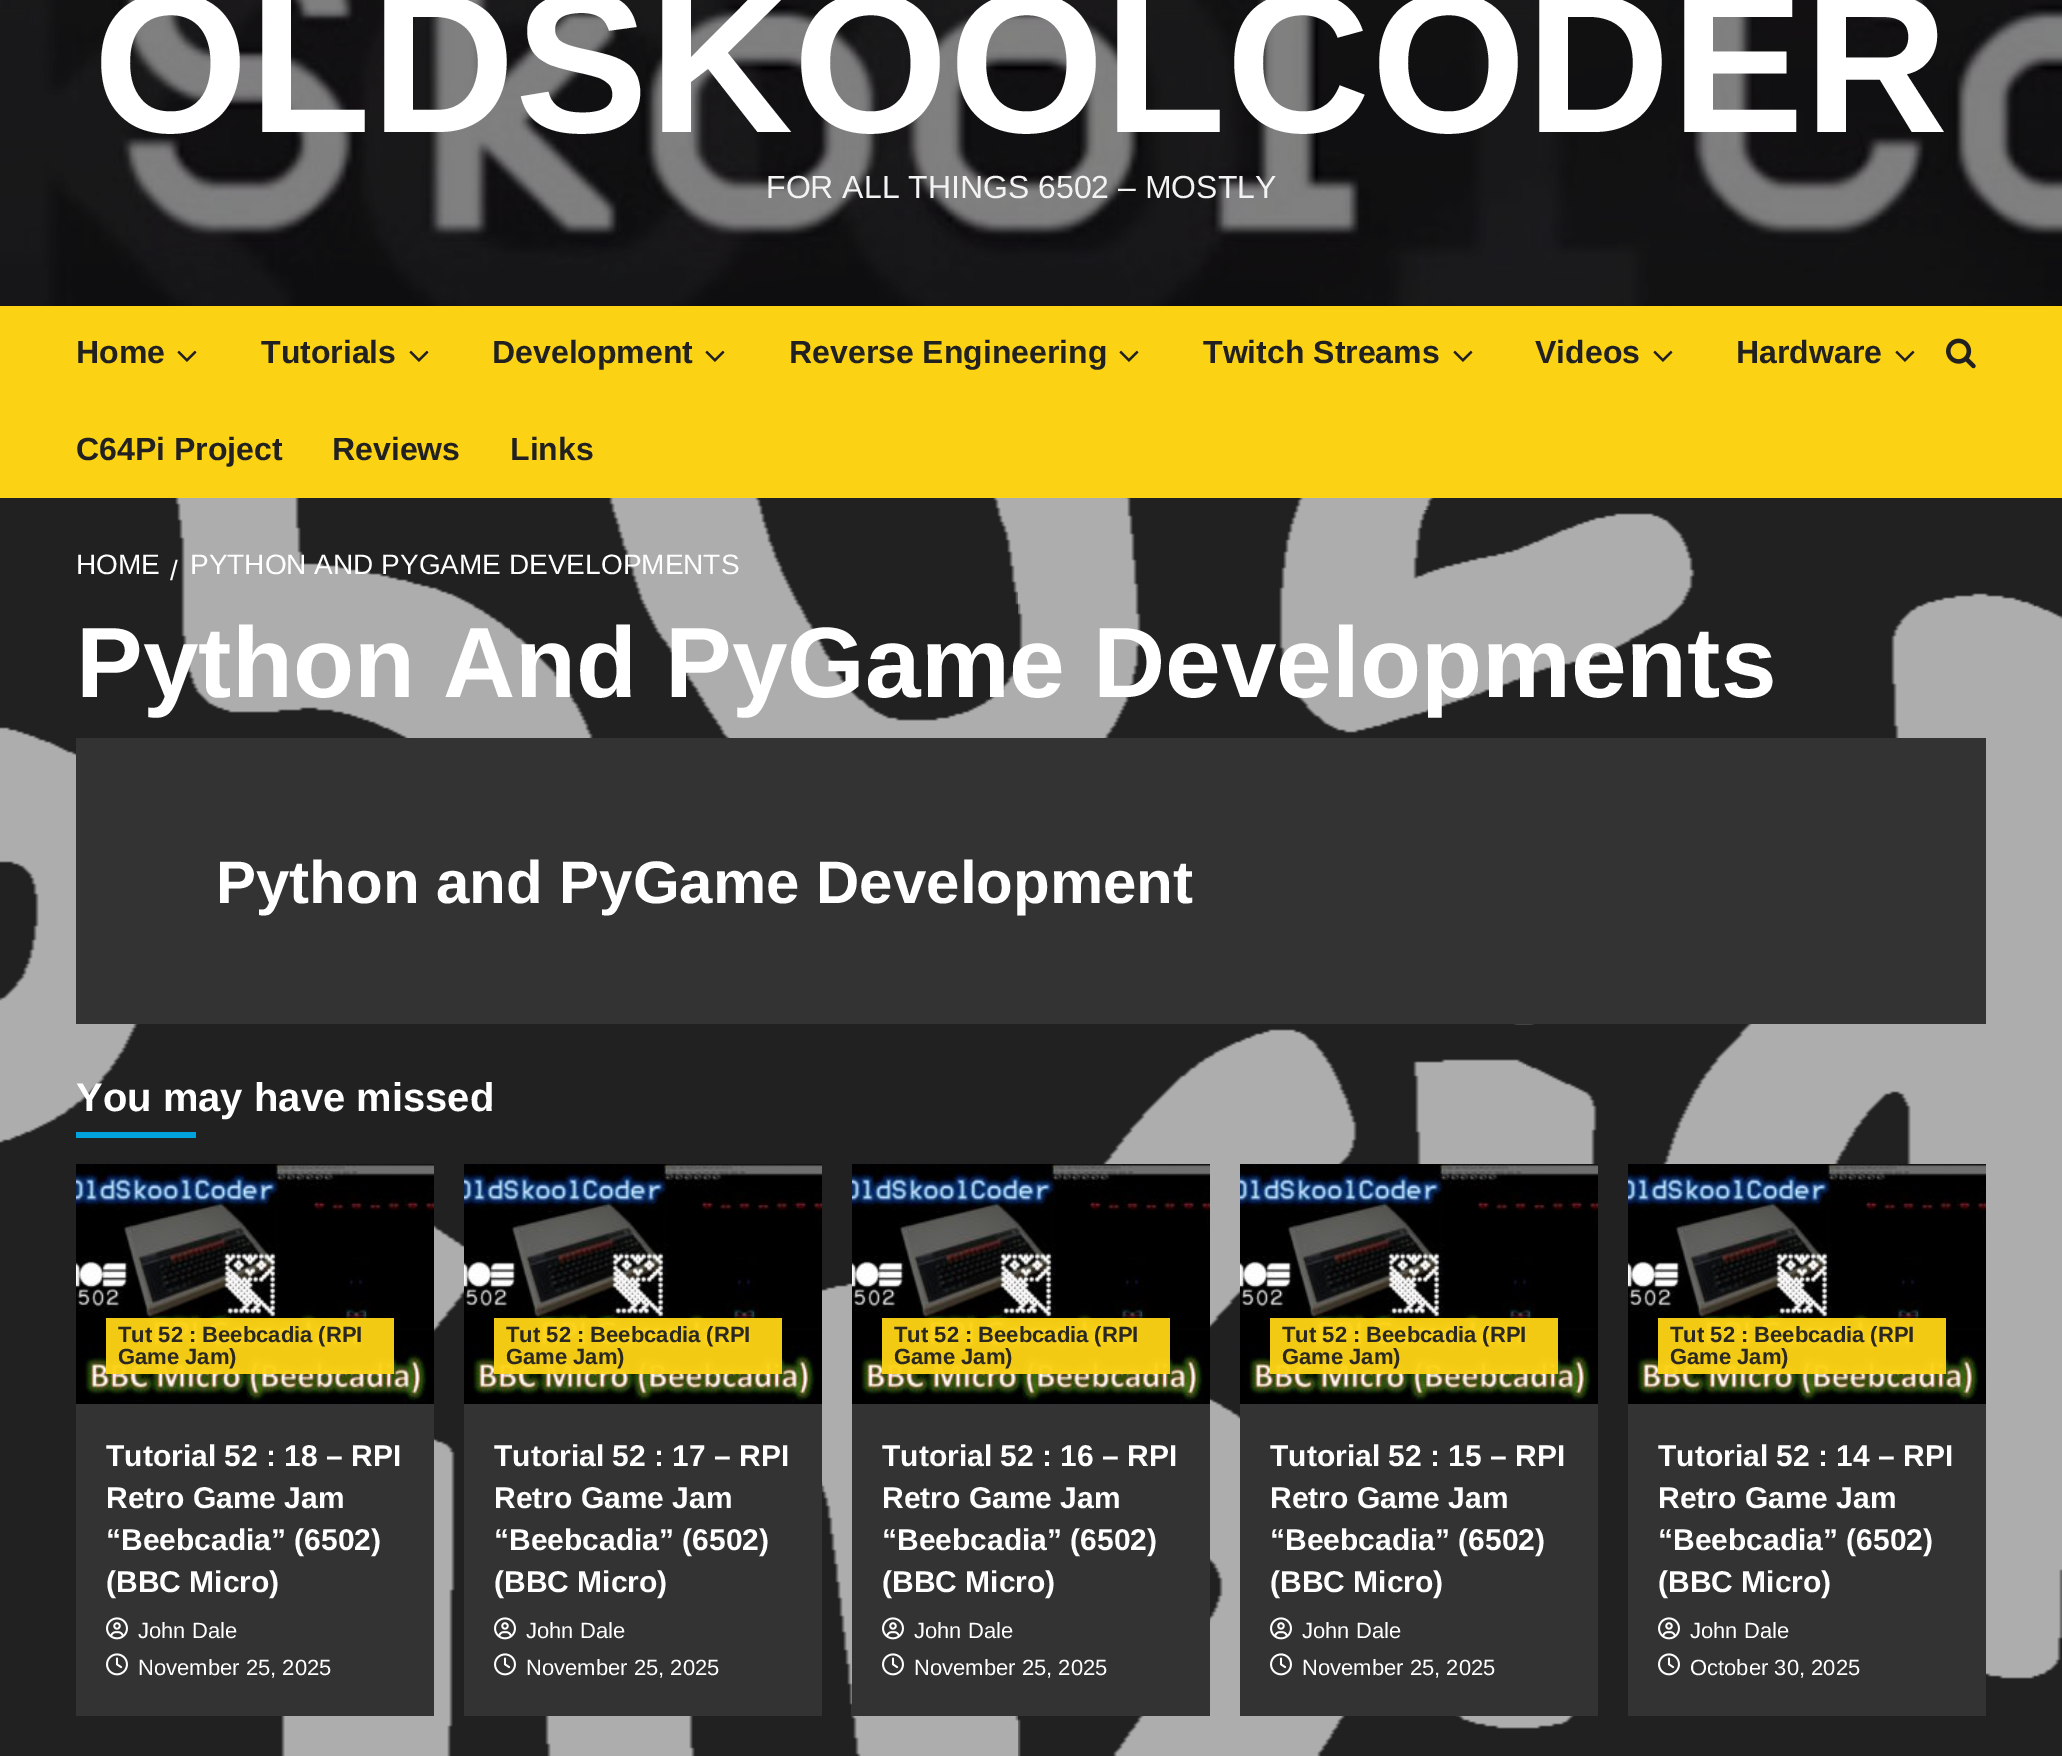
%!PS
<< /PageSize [2062 1756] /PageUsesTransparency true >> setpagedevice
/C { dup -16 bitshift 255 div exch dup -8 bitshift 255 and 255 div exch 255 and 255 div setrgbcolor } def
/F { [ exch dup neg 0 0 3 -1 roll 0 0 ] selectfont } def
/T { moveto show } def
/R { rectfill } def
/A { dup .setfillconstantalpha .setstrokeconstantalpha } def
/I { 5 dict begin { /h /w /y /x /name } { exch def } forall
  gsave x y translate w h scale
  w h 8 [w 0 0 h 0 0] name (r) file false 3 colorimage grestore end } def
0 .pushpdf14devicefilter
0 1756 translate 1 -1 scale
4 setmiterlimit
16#212121 C
0 0 2062 1756 R
(1.rgb) 0 498 2062 1258 I
(2.rgb) 0 0 2062 306 I
/LiberationSans-Bold 200 F
16#FFFFFF C
(OLDSKOOLCODER) 93 132 T
/LiberationSans-Regular 32 F
16#F3F3F3 C
(FOR ALL THINGS 6502 – MOSTLY) 766 198 T
16#FCD215 C
0 306 2062 192 R
/LiberationSans-Bold 32 F
16#212121 C
(Home) 76 363 T
(3.rgb) 177 350 20 12 I
(Tutorials) 261 363 T
(3.rgb) 409 350 20 12 I
(Development) 492 363 T
(3.rgb) 705 350 20 12 I
(Reverse Engineering) 789 363 T
(3.rgb) 1119 350 20 12 I
(Twitch Streams) 1203 363 T
(3.rgb) 1453 350 20 12 I
(Videos) 1535 363 T
(3.rgb) 1653 350 20 12 I
(Hardware) 1736 363 T
(3.rgb) 1895 350 20 12 I
(C64Pi Project) 76 460 T
(Reviews) 332 460 T
(Links) 510 460 T
(4.rgb) 1946 338 30 31 I
/LiberationSans-Regular 28 F
16#FFFFFF C
(HOME) 76 574 T
(/) 170 580 T
(PYTHON AND PYGAME DEVELOPMENTS) 190 574 T
/LiberationSans-Bold 100 F
(Python And PyGame Developments) 76 697 T
16#333333 C
76 738 1910 286 R
/LiberationSans-Bold 60 F
16#FFFFFF C
(Python and PyGame Development) 216 903 T
/LiberationSans-Bold 40 F
(You may have missed) 76 1111 T
16#00A3DD C
76 1132 120 6 R
16#333333 C
76 1404 358 312 R
(5.rgb) 76 1164 358 240 I
0.96 A
16#FCD215 C
106 1318 288 56 R
/LiberationSans-Bold 22 F
1 A
16#2A2821 C
(Tut 52 : Beebcadia \(RPI) 118 1342 T
(Game Jam\)) 118 1364 T
/LiberationSans-Bold 30 F
16#FFFFFF C
(Tutorial 52 : 18 – RPI) 106 1466 T
(Retro Game Jam) 106 1508 T
(“Beebcadia” \(6502\)) 106 1550 T
(\(BBC Micro\)) 106 1592 T
(6.rgb) 106 1617 22 23 I
/LiberationSans-Regular 22 F
(John Dale) 138 1638 T
(7.rgb) 106 1653 22 23 I
(November 25, 2025) 138 1675 T
16#333333 C
464 1404 358 312 R
(8.rgb) 464 1164 358 240 I
0.96 A
16#FCD215 C
494 1318 288 56 R
/LiberationSans-Bold 22 F
1 A
16#2A2821 C
(Tut 52 : Beebcadia \(RPI) 506 1342 T
(Game Jam\)) 506 1364 T
/LiberationSans-Bold 30 F
16#FFFFFF C
(Tutorial 52 : 17 – RPI) 494 1466 T
(Retro Game Jam) 494 1508 T
(“Beebcadia” \(6502\)) 494 1550 T
(\(BBC Micro\)) 494 1592 T
(6.rgb) 494 1617 22 23 I
/LiberationSans-Regular 22 F
(John Dale) 526 1638 T
(7.rgb) 494 1653 22 23 I
(November 25, 2025) 526 1675 T
16#333333 C
852 1404 358 312 R
(8.rgb) 852 1164 358 240 I
0.96 A
16#FCD215 C
882 1318 288 56 R
/LiberationSans-Bold 22 F
1 A
16#2A2821 C
(Tut 52 : Beebcadia \(RPI) 894 1342 T
(Game Jam\)) 894 1364 T
/LiberationSans-Bold 30 F
16#FFFFFF C
(Tutorial 52 : 16 – RPI) 882 1466 T
(Retro Game Jam) 882 1508 T
(“Beebcadia” \(6502\)) 882 1550 T
(\(BBC Micro\)) 882 1592 T
(6.rgb) 882 1617 22 23 I
/LiberationSans-Regular 22 F
(John Dale) 914 1638 T
(7.rgb) 882 1653 22 23 I
(November 25, 2025) 914 1675 T
16#333333 C
1240 1404 358 312 R
(8.rgb) 1240 1164 358 240 I
0.96 A
16#FCD215 C
1270 1318 288 56 R
/LiberationSans-Bold 22 F
1 A
16#2A2821 C
(Tut 52 : Beebcadia \(RPI) 1282 1342 T
(Game Jam\)) 1282 1364 T
/LiberationSans-Bold 30 F
16#FFFFFF C
(Tutorial 52 : 15 – RPI) 1270 1466 T
(Retro Game Jam) 1270 1508 T
(“Beebcadia” \(6502\)) 1270 1550 T
(\(BBC Micro\)) 1270 1592 T
(6.rgb) 1270 1617 22 23 I
/LiberationSans-Regular 22 F
(John Dale) 1302 1638 T
(7.rgb) 1270 1653 22 23 I
(November 25, 2025) 1302 1675 T
16#333333 C
1628 1404 358 312 R
(8.rgb) 1628 1164 358 240 I
0.96 A
16#FCD215 C
1658 1318 288 56 R
/LiberationSans-Bold 22 F
1 A
16#2A2821 C
(Tut 52 : Beebcadia \(RPI) 1670 1342 T
(Game Jam\)) 1670 1364 T
/LiberationSans-Bold 30 F
16#FFFFFF C
(Tutorial 52 : 14 – RPI) 1658 1466 T
(Retro Game Jam) 1658 1508 T
(“Beebcadia” \(6502\)) 1658 1550 T
(\(BBC Micro\)) 1658 1592 T
(6.rgb) 1658 1617 22 23 I
/LiberationSans-Regular 22 F
(John Dale) 1690 1638 T
(7.rgb) 1658 1653 22 23 I
(October 30, 2025) 1690 1675 T
.poppdf14devicefilter showpage
